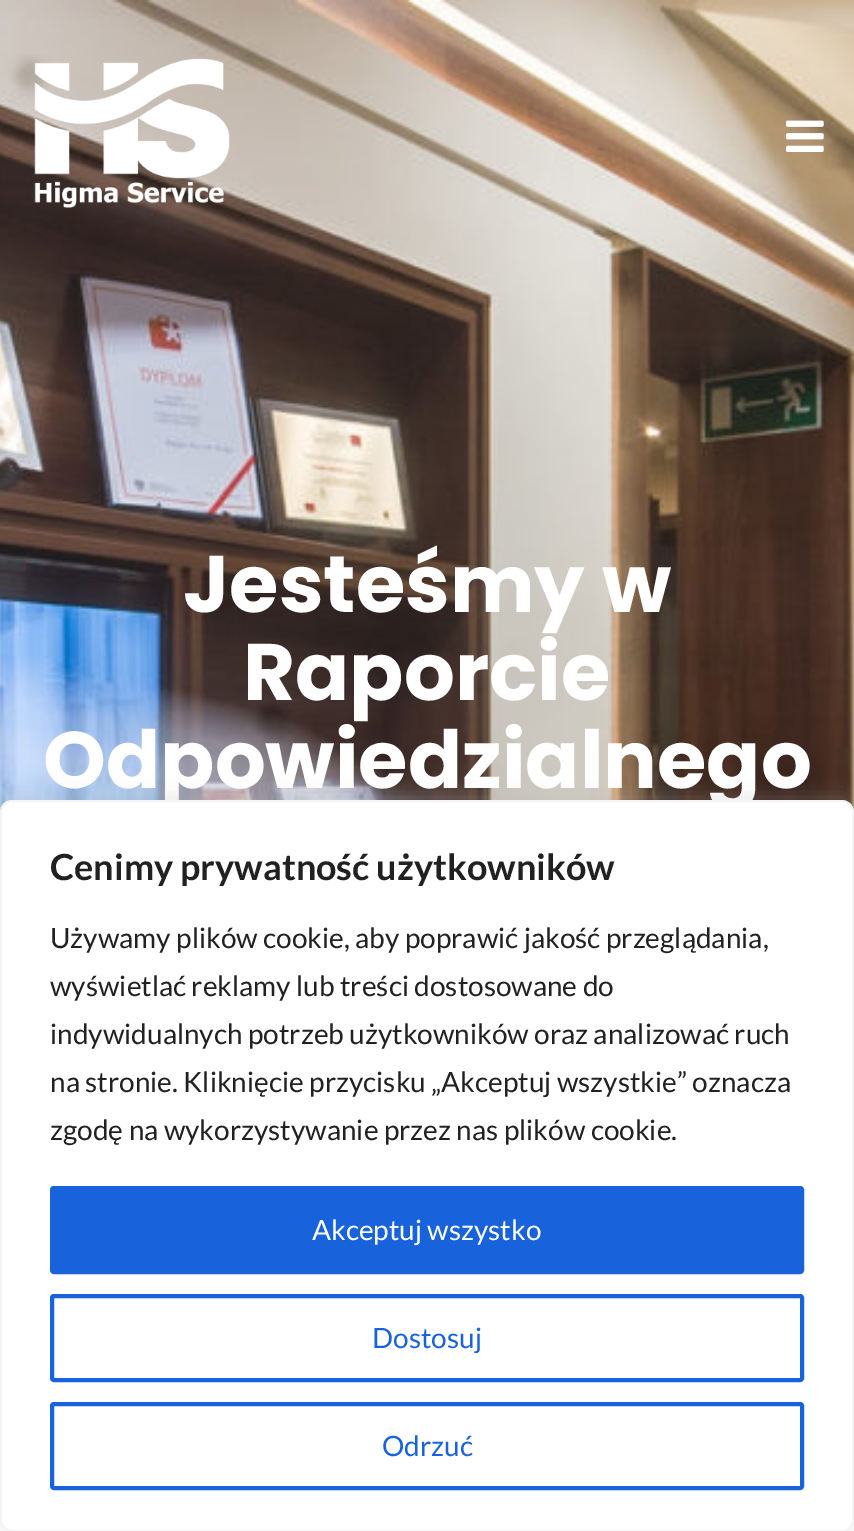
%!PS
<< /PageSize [854 1531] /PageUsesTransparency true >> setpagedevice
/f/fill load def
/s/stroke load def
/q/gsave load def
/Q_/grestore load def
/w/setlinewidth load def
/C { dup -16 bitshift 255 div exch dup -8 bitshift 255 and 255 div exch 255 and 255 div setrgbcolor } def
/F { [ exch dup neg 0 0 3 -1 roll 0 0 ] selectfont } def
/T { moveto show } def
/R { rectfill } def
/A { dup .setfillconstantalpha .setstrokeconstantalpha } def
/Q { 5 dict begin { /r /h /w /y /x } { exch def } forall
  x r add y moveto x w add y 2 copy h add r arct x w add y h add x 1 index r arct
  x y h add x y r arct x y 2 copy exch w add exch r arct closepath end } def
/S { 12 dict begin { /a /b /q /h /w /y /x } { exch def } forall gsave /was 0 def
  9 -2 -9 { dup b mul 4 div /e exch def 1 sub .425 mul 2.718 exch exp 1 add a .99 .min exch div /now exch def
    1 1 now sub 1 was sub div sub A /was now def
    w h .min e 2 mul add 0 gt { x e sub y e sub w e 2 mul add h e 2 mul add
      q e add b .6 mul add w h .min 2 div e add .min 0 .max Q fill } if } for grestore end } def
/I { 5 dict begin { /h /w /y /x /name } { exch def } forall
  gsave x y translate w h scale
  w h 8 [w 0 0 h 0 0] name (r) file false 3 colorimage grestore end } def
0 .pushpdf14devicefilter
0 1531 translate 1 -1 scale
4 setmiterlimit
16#FFFFFF C
0 0 854 1531 R
(1.rgb) 0 0 854 812 I
(2.rgb) 34 58 196 150 I
(3.rgb) 786 120 38 32 I
/Poppins-Bold 80 F
(Jesteśmy w) 183 612 T
(Raporcie) 243 700 T
(Odpowiedzialnego) 43 788 T
16#ACABAB C
0 798 854 732 12 10 .3 S
16#FFFFFF C
1 801 852 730 11 Q q f Q_
16#F4F4F4 C
2 w
s
/Lato-Bold 36 F
16#212121 C
(Cenimy prywatność użytkowników) 50 880 T
/Lato-Regular 28 F
(Używamy plików cookie, aby poprawić jakość przeglądania,) 50 948 T
(wyświetlać reklamy lub treści dostosowane do) 50 996 T
(indywidualnych potrzeb użytkowników oraz analizować ruch) 50 1044 T
(na stronie. Kliknięcie przycisku „Akceptuj wszystkie” oznacza) 50 1092 T
(zgodę na wykorzystywanie przez nas plików cookie.) 50 1140 T
16#1863DC C
52 1188 750 84 2 Q q f Q_
4 w
s
16#FFFFFF C
(Akceptuj wszystko) 312 1240 T
16#1863DC C
52 1296 750 84 2 Q s
(Dostosuj) 372 1348 T
52 1404 750 84 2 Q s
(Odrzuć) 382 1456 T
.poppdf14devicefilter showpage
